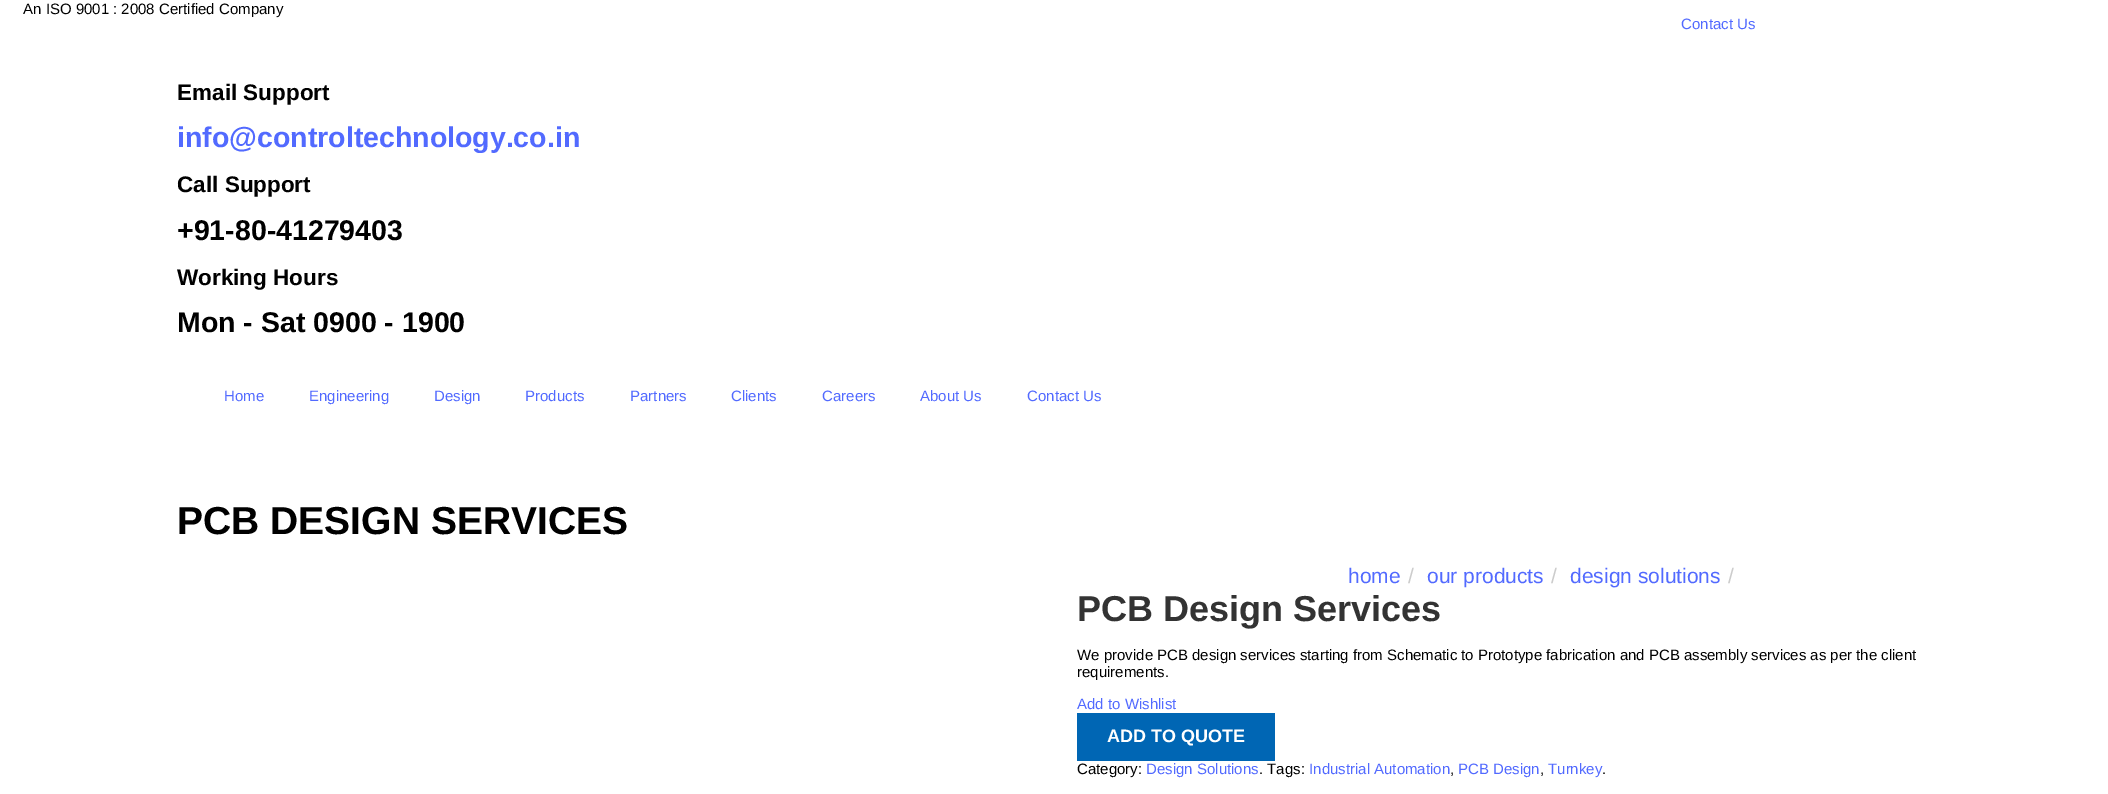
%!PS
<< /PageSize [2108 794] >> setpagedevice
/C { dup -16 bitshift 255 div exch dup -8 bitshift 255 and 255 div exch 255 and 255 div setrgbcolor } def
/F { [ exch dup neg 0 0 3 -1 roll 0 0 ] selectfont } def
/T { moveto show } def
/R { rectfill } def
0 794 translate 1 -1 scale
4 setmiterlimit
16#FFFFFF C
0 0 2108 794 R
/LiberationSans-Regular 15 F
16#000000 C
(An ISO 9001 : 2008 Certified Company) 23 14 T
16#526AFF C
(Contact Us) 1681 29 T
/LiberationSans-Bold 22.5 F
16#000000 C
(Email Support) 177 100 T
/LiberationSans-Bold 28.5 F
16#526AFF C
(info@controltechnology.co.in) 177 147 T
/LiberationSans-Bold 22.5 F
16#000000 C
(Call Support) 177 192 T
/LiberationSans-Bold 28.5 F
(+91-80-41279403) 177 240 T
/LiberationSans-Bold 22.5 F
(Working Hours) 177 285 T
/LiberationSans-Bold 28.5 F
(Mon - Sat 0900 - 1900) 177 332 T
/LiberationSans-Regular 15 F
16#526AFF C
(Home) 224 401 T
(Engineering) 309 401 T
(Design) 434 401 T
(Products) 525 401 T
(Partners) 630 401 T
(Clients) 731 401 T
(Careers) 822 401 T
(About Us) 920 401 T
(Contact Us) 1027 401 T
/LiberationSans-Bold 39 F
16#000000 C
(PCB DESIGN SERVICES) 177 534 T
/LiberationSans-Regular 21 F
16#526AFF C
(home) 1348 583 T
16#CCCCCC C
(/) 1408 583 T
16#526AFF C
(our products) 1427 583 T
16#CCCCCC C
(/) 1551 583 T
16#526AFF C
(design solutions) 1570 583 T
16#CCCCCC C
(/) 1728 583 T
/LiberationSans-Bold 36 F
16#333333 C
(PCB Design Services) 1077 621 T
/LiberationSans-Regular 15 F
16#000000 C
(We provide PCB design services starting from Schematic to Prototype fabrication and PCB assembly services as per the client) 1077 660 T
(requirements.) 1077 677 T
16#526AFF C
(Add to Wishlist) 1077 709 T
16#0066B4 C
1077 713 198 48 R
/LiberationSans-Bold 18 F
16#FFFFFF C
(ADD TO QUOTE) 1107 742 T
/LiberationSans-Regular 15 F
16#000000 C
(Category:) 1077 774 T
16#526AFF C
(Design Solutions) 1146 774 T
16#000000 C
(. Tags:) 1259 774 T
16#526AFF C
(Industrial Automation) 1309 774 T
16#000000 C
(,) 1450 774 T
16#526AFF C
(PCB Design) 1458 774 T
16#000000 C
(,) 1540 774 T
16#526AFF C
(Turnkey) 1548 774 T
16#000000 C
(.) 1602 774 T
showpage
